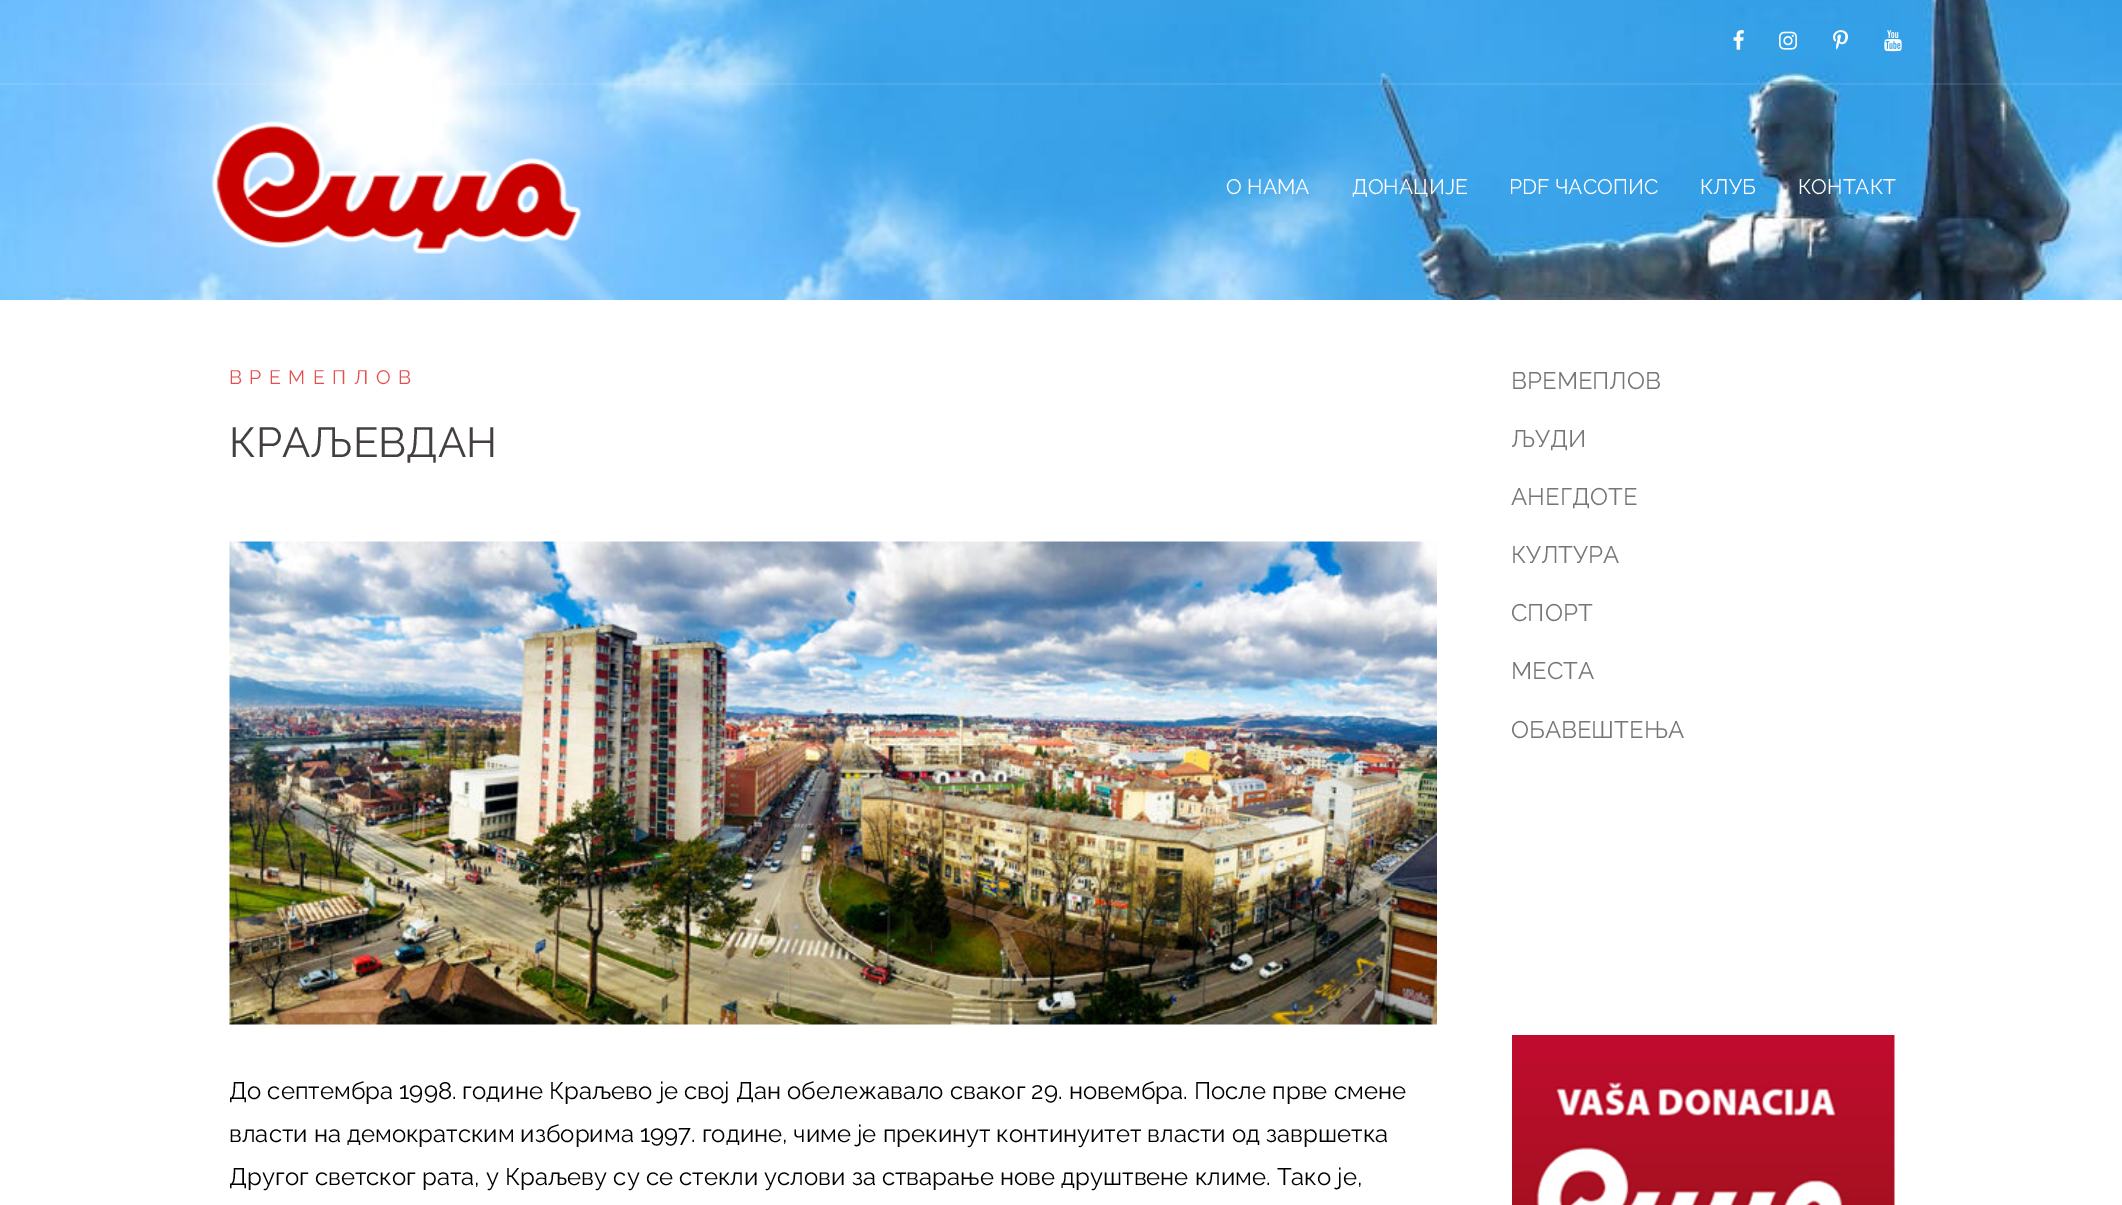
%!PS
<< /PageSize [2122 1205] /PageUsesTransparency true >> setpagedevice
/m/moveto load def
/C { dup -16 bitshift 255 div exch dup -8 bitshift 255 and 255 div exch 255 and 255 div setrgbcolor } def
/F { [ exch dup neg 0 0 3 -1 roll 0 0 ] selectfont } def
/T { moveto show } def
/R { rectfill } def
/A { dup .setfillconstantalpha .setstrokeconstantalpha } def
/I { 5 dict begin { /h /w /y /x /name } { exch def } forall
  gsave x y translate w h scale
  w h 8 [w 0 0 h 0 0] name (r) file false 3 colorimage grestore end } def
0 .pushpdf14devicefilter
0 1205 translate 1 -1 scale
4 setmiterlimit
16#FFFFFF C
0 0 2122 1205 R
(1.rgb) 0 0 2122 300 I
0.1 A
16#F1F1F1 C
0 83 2122 2 R
1 A
(2.rgb) 1733 30 11 20 I
(3.rgb) 1779 31 18 19 I
(4.rgb) 1833 30 15 20 I
(5.rgb) 1884 30 18 22 I
(6.rgb) 211 121 371 133 I
/Raleway-Regular 21 F
16#FFFFFF C
(О НАМА) 1226 194 T
(ДОНАЦИЈЕ) 1352 194 T
(PDF ЧАСОПИС) 1509 194 T
(КЛУБ) 1700 194 T
(КОНТАКТ) 1798 194 T
/Raleway-Regular 19.5 F
16#E64E4E C
229 384 m 7.5 0 (ВРЕМЕПЛОВ) ashow
/Raleway-Regular 42 F
16#443F3F C
(КРАЉЕВДАН) 229 457 T
(7.rgb) 229 541 1208 484 I
/Raleway-Regular 24 F
16#000000 C
(До септембра 1998. године Краљево је свој Дан обележавало сваког 29. новембра. После прве смене) 229 1099 T
(власти на демократским изборима 1997. године, чиме је прекинут континуитет власти од завршетка) 229 1142 T
(Другог светског рата, у Краљеву су се стекли услови за стварање нове друштвене климе. Тако је,) 229 1185 T
16#767676 C
(ВРЕМЕПЛОВ) 1511 389 T
(ЉУДИ) 1511 447 T
(АНЕГДОТЕ) 1511 505 T
(КУЛТУРА) 1511 563 T
(СПОРТ) 1511 621 T
(МЕСТА) 1511 679 T
(ОБАВЕШТЕЊА) 1511 738 T
(8.rgb) 1512 1035 383 170 I
.poppdf14devicefilter showpage
